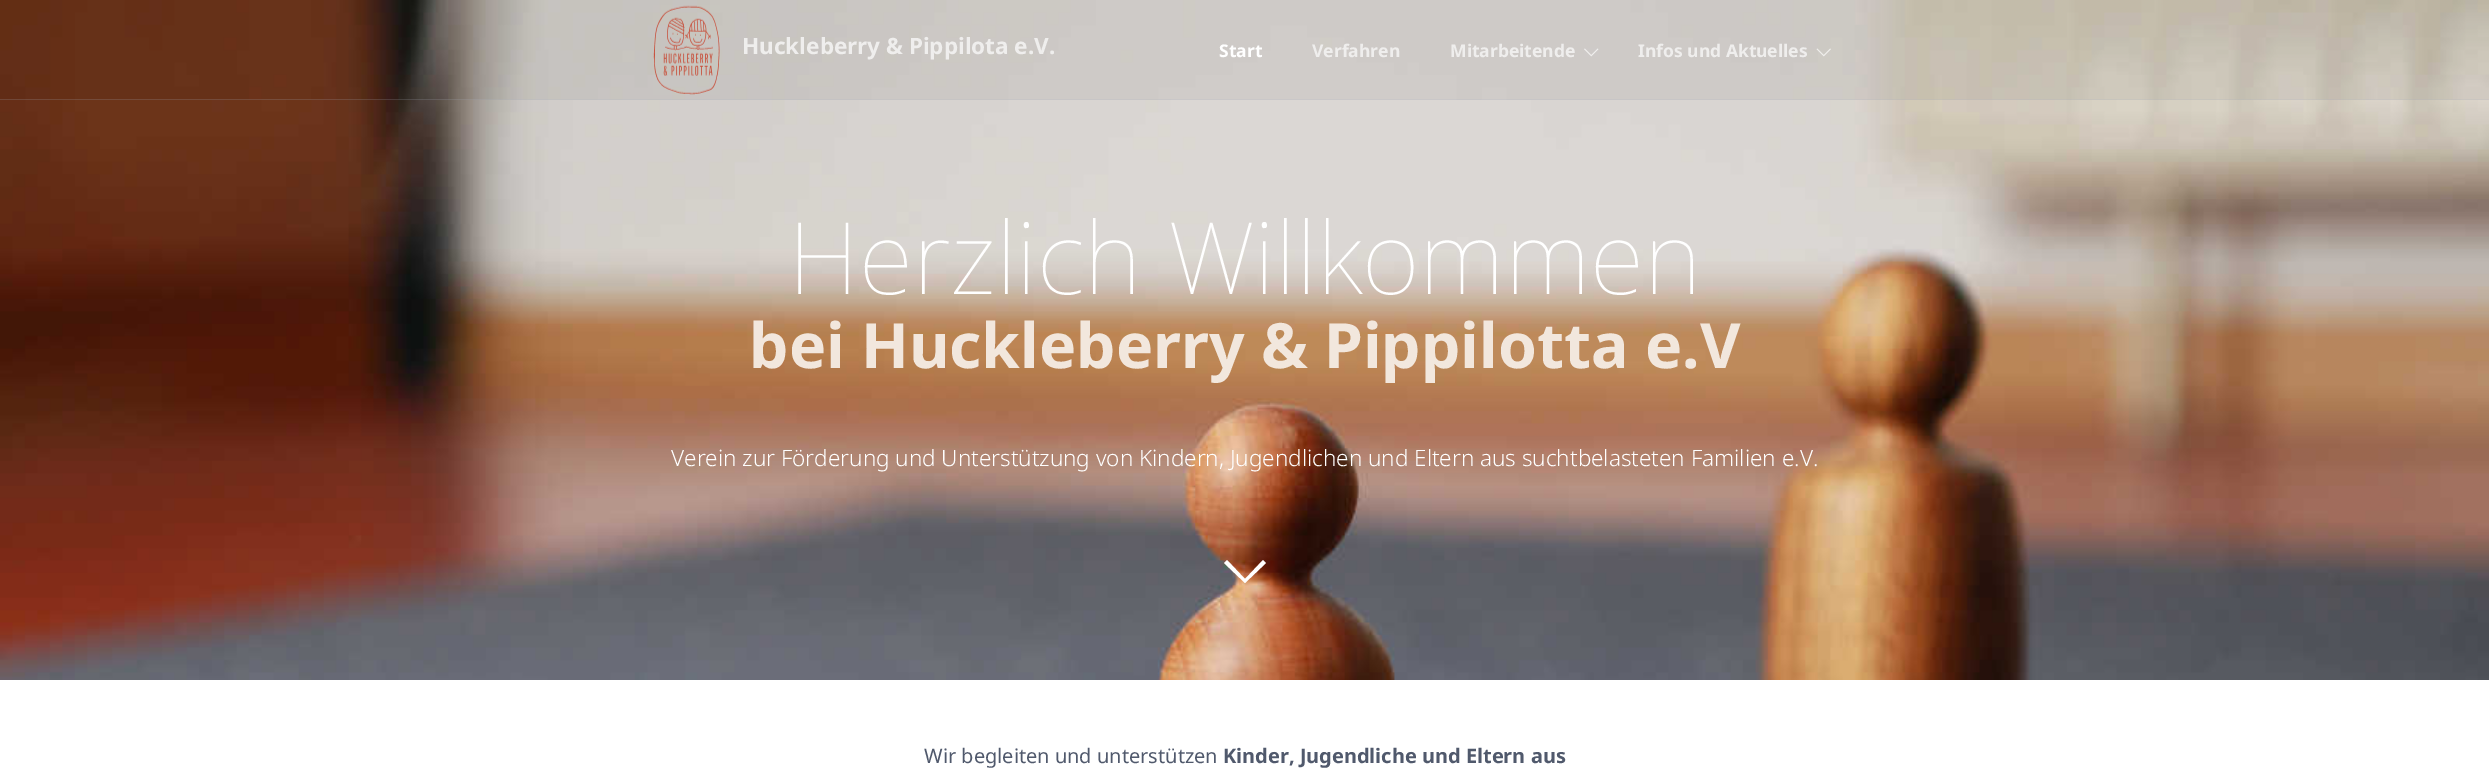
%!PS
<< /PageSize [2489 771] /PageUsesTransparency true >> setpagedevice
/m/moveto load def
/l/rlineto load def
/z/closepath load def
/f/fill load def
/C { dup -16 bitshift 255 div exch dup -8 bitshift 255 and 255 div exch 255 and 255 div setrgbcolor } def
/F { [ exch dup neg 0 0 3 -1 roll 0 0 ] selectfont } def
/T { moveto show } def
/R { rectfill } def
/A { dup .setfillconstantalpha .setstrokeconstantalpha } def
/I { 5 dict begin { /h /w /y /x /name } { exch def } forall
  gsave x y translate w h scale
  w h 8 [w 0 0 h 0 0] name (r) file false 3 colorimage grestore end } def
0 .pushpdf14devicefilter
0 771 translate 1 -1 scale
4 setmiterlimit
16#FFFFFF C
0 0 2489 771 R
(4.rgb) 0 0 2489 680 I
0.05 A
16#000000 C
0 0 2489 100 R
0.2 A
16#ACB3C2 C
0 99 2489 1 R
1 A
(1.rgb) 653 5 67 90 I
/NotoSans-Bold 22.5 F
16#EFEEED C
(Huckleberry & Pippilota e.V.) 742 54 T
/NotoSans-Bold 17.5 F
16#FFFFFF C
(Start) 1219 57 T
16#EFEEED C
(Verfahren) 1312 57 T
(Mitarbeitende) 1450 57 T
(2.rgb) 1584 48 15 9 I
(Infos und Aktuelles) 1638 57 T
(3.rgb) 1816 48 15 9 I
/NotoSans-Thin 100 F
16#FFFFFF C
(Herzlich Willkommen) 788 294 T
/NotoSans-Bold 62.5 F
16#F2E7DD C
(bei Huckleberry & Pippilotta e.V) 749 368 T
/NotoSans-Light 22.5 F
16#FFFFFF C
(Verein zur Förderung und Unterstützung von Kindern, Jugendlichen und Eltern aus suchtbelasteten Familien e.V.) 671 466 T
1227 560 m 18 19 l 18 -19 l 3 3 l -21 20 l -21 -20 l z f
/NotoSans-Regular 20 F
16#50596C C
(Wir begleiten und unterstützen) 924 763 T
/NotoSans-Bold 20 F
(Kinder, Jugendliche und Eltern aus) 1223 763 T
.poppdf14devicefilter showpage
